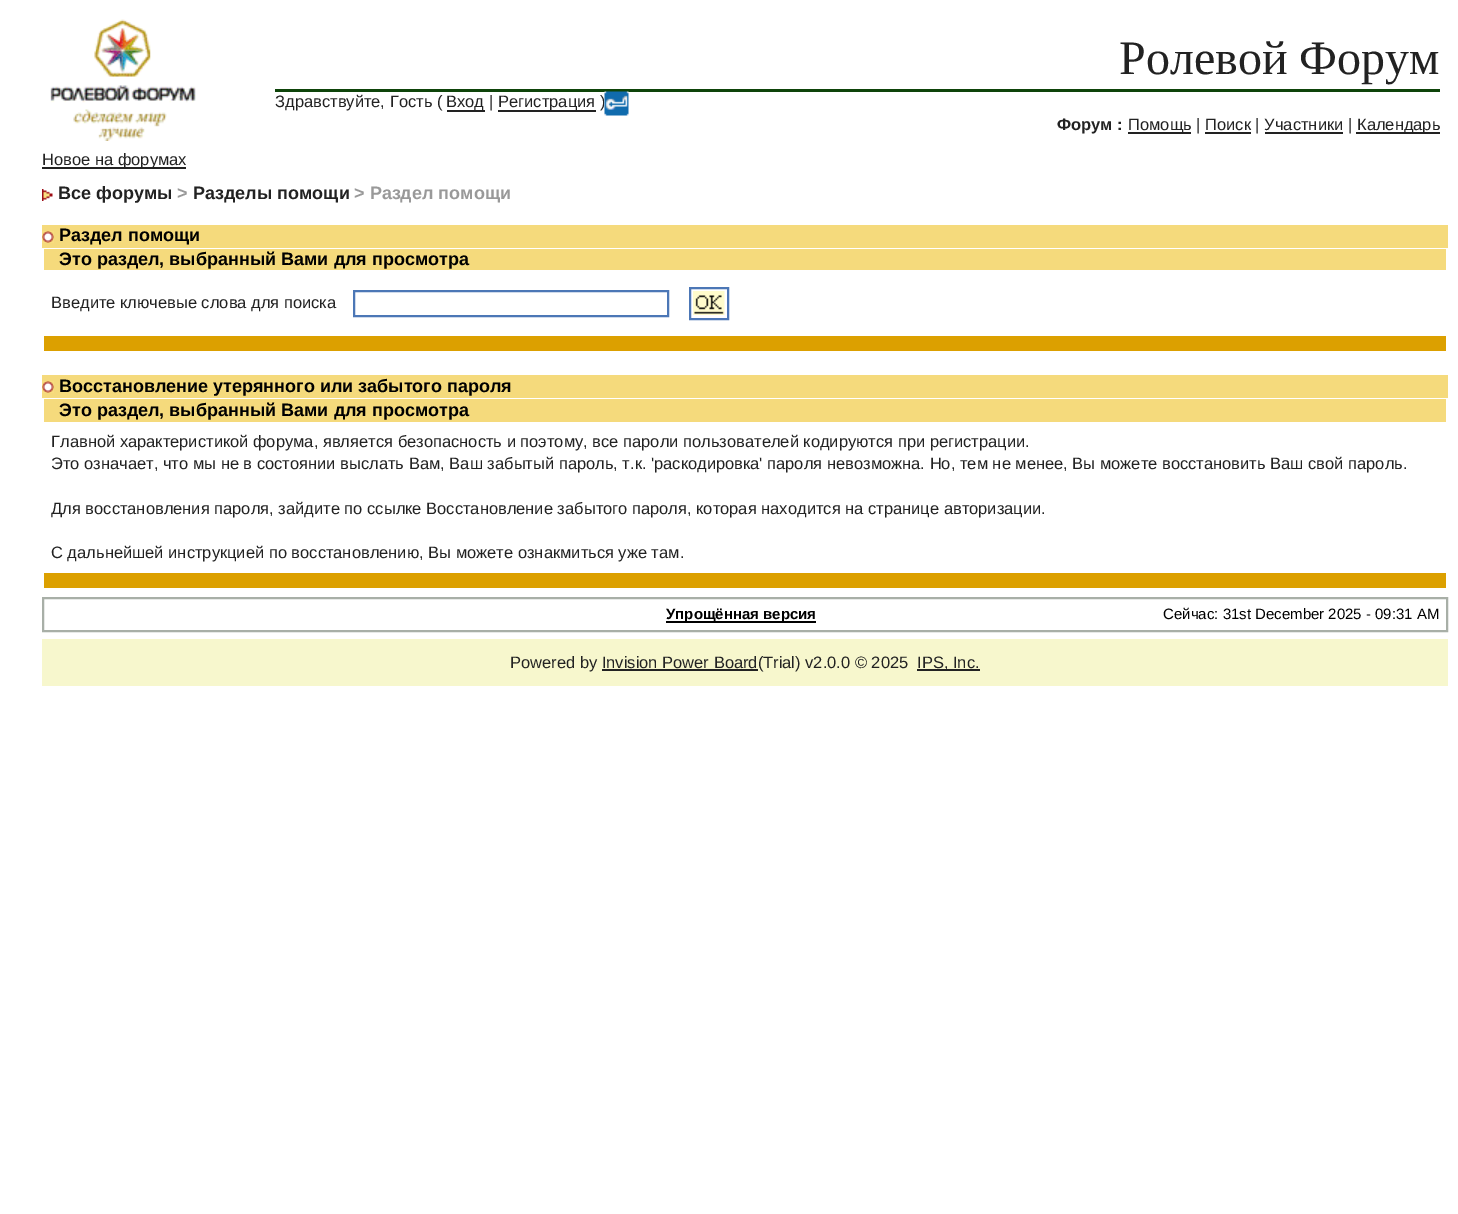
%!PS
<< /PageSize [1458 1214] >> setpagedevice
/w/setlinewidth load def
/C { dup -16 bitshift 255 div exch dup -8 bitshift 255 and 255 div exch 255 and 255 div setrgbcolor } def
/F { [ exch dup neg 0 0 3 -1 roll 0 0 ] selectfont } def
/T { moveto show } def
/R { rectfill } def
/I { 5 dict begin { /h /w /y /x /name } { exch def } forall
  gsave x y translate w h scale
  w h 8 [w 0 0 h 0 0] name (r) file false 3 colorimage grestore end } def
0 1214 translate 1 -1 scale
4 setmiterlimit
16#FFFFFF C
0 0 1458 1214 R
(1.rgb) 50 19 146 122 I
16#0E440A C
275 89 1165 3 R
/LiberationSerif-Regular 48 F
16#222222 C
(Ролевой Форум) 1119 74 T
/LiberationSans-Regular 16.5 F
(Здравствуйте, Гость \() 275 107 T
447 110 38 2 R
(Вход |) 446 107 T
498 110 98 2 R
(Регистрация \)) 498 107 T
(2.rgb) 604 91 25 25 I
/LiberationSans-Bold 16.5 F
(Форум :) 1057 130 T
1128 132 63 2 R
/LiberationSans-Regular 16.5 F
(Помощь | Поиск | Участники |) 1128 130 T
1356 132 84 2 R
(Календарь) 1357 130 T
1205 132 46 2 R
1265 132 78 2 R
42 167 144 2 R
(Новое на форумах) 42 165 T
(3.rgb) 42 189 11 12 I
/LiberationSans-Bold 18 F
(Все форумы) 58 199 T
16#999999 C
(>) 177 199 T
16#222222 C
(Разделы помощи) 193 199 T
16#999999 C
(> Раздел помощи) 354 199 T
16#F5DA7C C
42 225 1406 23 R
(4.rgb) 42 231 12 12 I
16#000000 C
(Раздел помощи) 59 241 T
16#F5DA7C C
44 249 1402 21 R
16#000000 C
(Это раздел, выбранный Вами для просмотра) 59 265 T
/LiberationSans-Regular 16.5 F
16#222222 C
(Введите ключевые слова для поиска) 51 308 T
16#4C77B6 C
2 w
354 291 314 25 rectstroke
690 288 38 31 rectstroke
(5.rgb) 693 291 32 24 I
16#DCA000 C
44 336 1402 15 R
16#F5DA7C C
42 375 1406 23 R
(4.rgb) 42 381 12 12 I
/LiberationSans-Bold 18 F
16#000000 C
(Восстановление утерянного или забытого пароля) 59 392 T
16#F5DA7C C
44 399 1402 23 R
16#000000 C
(Это раздел, выбранный Вами для просмотра) 59 416 T
/LiberationSans-Regular 16.5 F
16#222222 C
(Главной характеристикой форума, является безопасность и поэтому, все пароли пользователей кодируются при регистрации.) 51 447 T
(Это означает, что мы не в состоянии выслать Вам, Ваш забытый пароль, т.к. 'раскодировка' пароля невозможна. Но, тем не менее, Вы можете восстановить Ваш свой пароль.) 51 469 T
(Для восстановления пароля, зайдите по ссылке Восстановление забытого пароля, которая находится на странице авторизации.) 51 514 T
(С дальнейшей инструкцией по восстановлению, Вы можете ознакмиться уже там.) 51 558 T
16#DCA000 C
44 573 1402 15 R
16#A8AFA7 C
43 598 1404 33 rectstroke
16#000000 C
666 621 150 2 R
/LiberationSans-Bold 15 F
(Упрощённая версия) 666 619 T
/LiberationSans-Regular 15 F
(Сейчас: 31st December 2025 - 09:31 AM) 1163 619 T
16#F7F7CD C
42 639 1406 47 R
/LiberationSans-Regular 16.5 F
16#222222 C
(Powered by Invision Power Board\(Trial\) v2.0.0 © 2025) 510 668 T
917 669 63 2 R
(IPS, Inc.) 917 668 T
602 669 156 2 R
showpage
